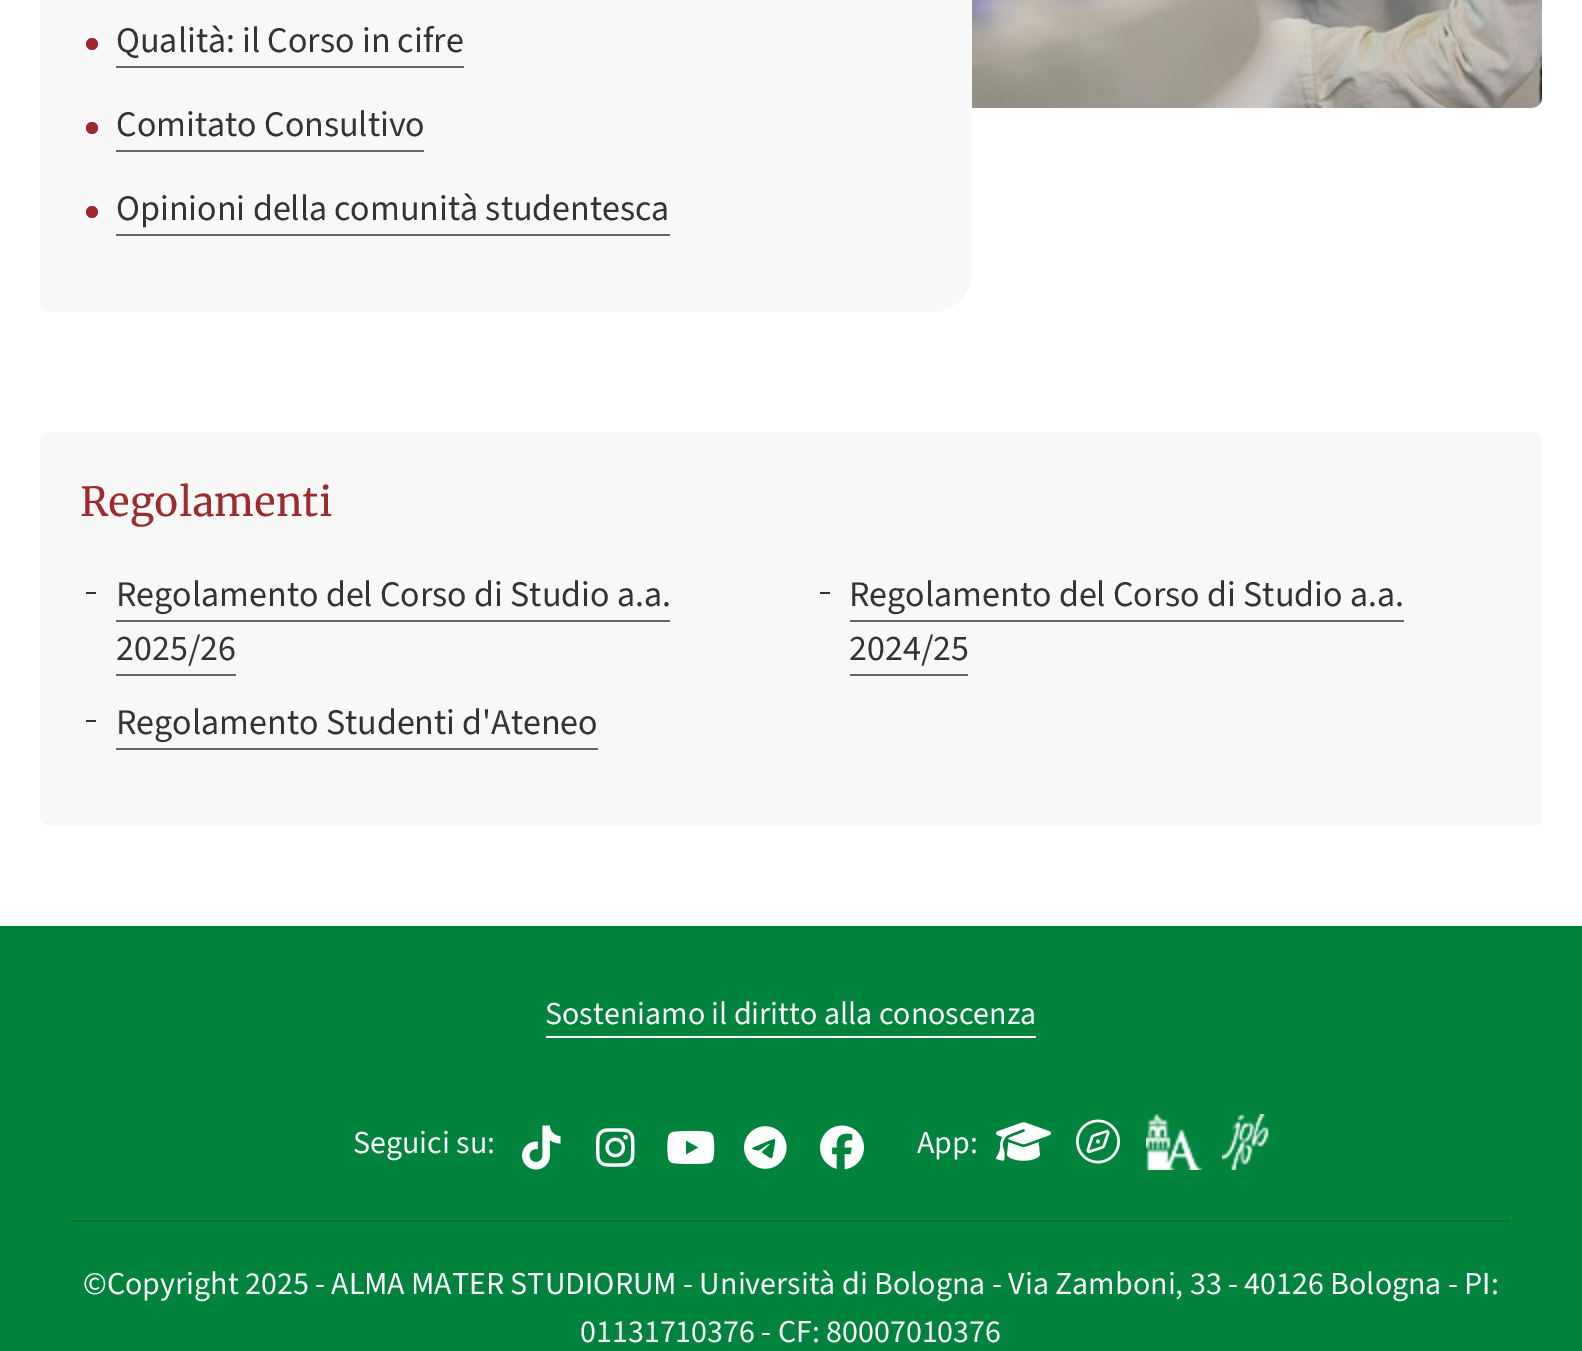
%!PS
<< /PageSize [1582 1351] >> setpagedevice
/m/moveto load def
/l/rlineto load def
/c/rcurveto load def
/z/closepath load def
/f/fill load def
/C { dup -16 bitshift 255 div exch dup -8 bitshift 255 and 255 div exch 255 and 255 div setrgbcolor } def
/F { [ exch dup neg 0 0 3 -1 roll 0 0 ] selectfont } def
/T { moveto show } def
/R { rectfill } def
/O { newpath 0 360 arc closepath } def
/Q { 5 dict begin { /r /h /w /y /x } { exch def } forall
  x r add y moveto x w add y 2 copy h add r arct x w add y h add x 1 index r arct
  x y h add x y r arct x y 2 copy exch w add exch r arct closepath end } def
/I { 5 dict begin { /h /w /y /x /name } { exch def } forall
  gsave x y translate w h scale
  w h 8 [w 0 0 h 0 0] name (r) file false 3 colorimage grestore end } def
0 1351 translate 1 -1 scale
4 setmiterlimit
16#FFFFFF C
0 0 1582 1351 R
16#F8F8F8 C
50 -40 m 912 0 l 5.5 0 10 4.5 10 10 c 0 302 l 0 22 -18 40 -40 40 c -882 0 l -5.5 0 -10 -4.5 -10 -10 c 0 -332 l 0 -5.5 4.5 -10 10 -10 c z f
16#9C2A30 C
92 44 6 O f
/SourceSans3-Regular 36 F
16#333333 C
(Qualità: il Corso in cifre) 116 52 T
16#666666 C
116 66 348 2 R
16#9C2A30 C
92 128 6 O f
16#333333 C
(Comitato Consultivo) 116 136 T
16#666666 C
116 150 308 2 R
16#9C2A30 C
92 212 6 O f
16#333333 C
(Opinioni della comunità studentesca) 116 220 T
16#666666 C
116 234 554 2 R
(1.rgb) 972 0 570 108 I
16#F8F8F8 C
40 432 1502 394 10 Q f
/Merriweather-Regular 40 F
16#9C2A30 C
(Regolamenti) 80 516 T
16#333333 C
86 592 10 2 R
/SourceSans3-Regular 36 F
(Regolamento del Corso di Studio a.a.) 116 606 T
16#666666 C
116 620 554 2 R
16#333333 C
(2025/26) 116 660 T
16#666666 C
116 674 120 2 R
16#333333 C
820 592 10 2 R
(Regolamento del Corso di Studio a.a.) 849 606 T
16#666666 C
850 620 554 2 R
16#333333 C
(2024/25) 849 660 T
16#666666 C
850 674 118 2 R
16#333333 C
86 720 10 2 R
(Regolamento Studenti d'Ateneo) 116 734 T
16#666666 C
116 748 482 2 R
16#00843D C
0 926 1582 425 R
/SourceSans3-Regular 32 F
16#FFFFFF C
(Sosteniamo il diritto alla conoscenza) 545 1024 T
546 1036 490 2 R
(Seguici su:) 353 1153 T
(2.rgb) 522 1125 39 45 I
(3.rgb) 596 1128 39 39 I
(4.rgb) 667 1131 48 33 I
(5.rgb) 744 1126 43 43 I
(6.rgb) 820 1125 44 45 I
(App:) 917 1153 T
(7.rgb) 996 1122 55 39 I
(8.rgb) 1076 1119 44 45 I
(9.rgb) 1146 1114 56 56 I
(10.rgb) 1222 1114 47 56 I
16#006E33 C
72 1220 1438 2 R
16#FFFFFF C
(©Copyright 2025 - ALMA MATER STUDIORUM - Università di Bologna - Via Zamboni, 33 - 40126 Bologna - PI:) 83 1294 T
(01131710376 - CF: 80007010376) 580 1342 T
showpage
